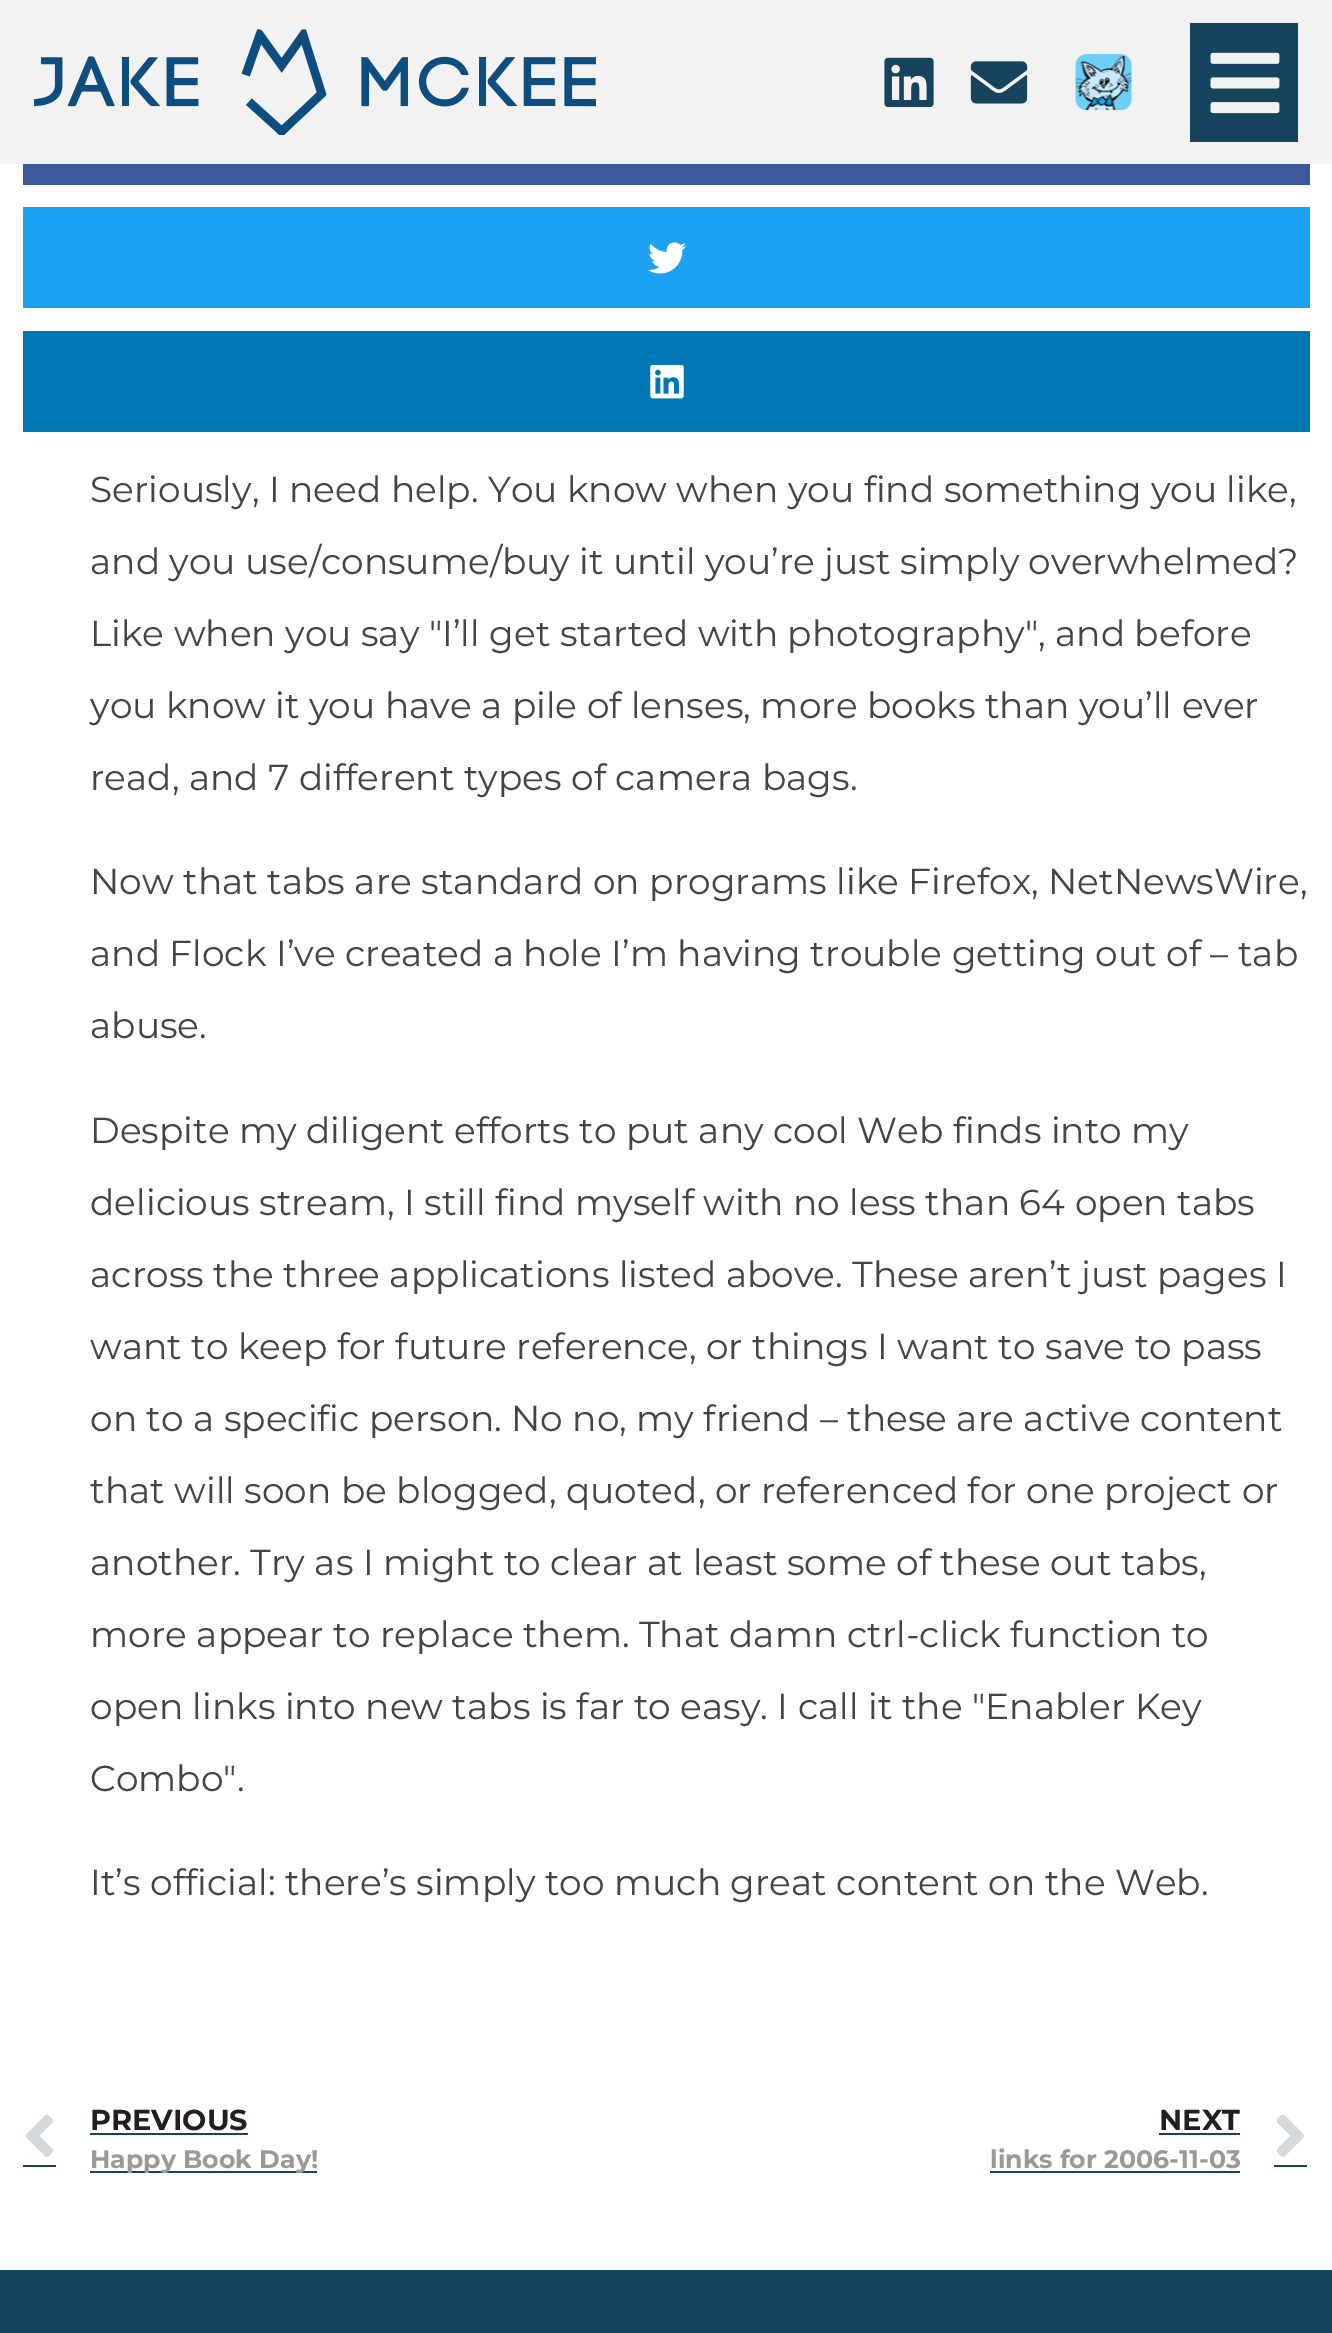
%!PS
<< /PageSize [1332 2333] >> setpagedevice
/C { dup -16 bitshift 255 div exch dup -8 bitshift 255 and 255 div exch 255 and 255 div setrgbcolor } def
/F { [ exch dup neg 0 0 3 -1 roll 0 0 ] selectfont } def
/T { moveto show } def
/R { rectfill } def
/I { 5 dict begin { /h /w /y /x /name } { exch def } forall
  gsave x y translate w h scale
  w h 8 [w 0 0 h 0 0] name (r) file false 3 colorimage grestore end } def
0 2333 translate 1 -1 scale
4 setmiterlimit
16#FFFFFF C
0 0 1332 2333 R
16#F2F2F2 C
0 0 1332 164 R
(1.rgb) 34 29 562 106 I
(2.rgb) 884 57 50 50 I
(3.rgb) 970 61 58 43 I
(4.rgb) 1075 54 58 57 I
16#16435D C
1190 23 108 119 R
(5.rgb) 1210 52 70 62 I
16#3B5998 C
23 164 1287 21 R
16#1DA1F2 C
23 207 1287 101 R
(6.rgb) 648 242 39 32 I
16#0077B5 C
23 331 1287 101 R
(7.rgb) 650 364 34 35 I
/Montserrat-Regular 36 F
16#444444 C
(Seriously, I need help. You know when you find something you like,) 90 502 T
(and you use/consume/buy it until you’re just simply overwhelmed?) 90 574 T
(Like when you say "I’ll get started with photography", and before) 90 646 T
(you know it you have a pile of lenses, more books than you’ll ever) 90 718 T
(read, and 7 different types of camera bags.) 90 790 T
(Now that tabs are standard on programs like Firefox, NetNewsWire,) 90 894 T
(and Flock I’ve created a hole I’m having trouble getting out of – tab) 90 966 T
(abuse.) 90 1038 T
(Despite my diligent efforts to put any cool Web finds into my) 90 1143 T
(delicious stream, I still find myself with no less than 64 open tabs) 90 1215 T
(across the three applications listed above. These aren’t just pages I) 90 1287 T
(want to keep for future reference, or things I want to save to pass) 90 1359 T
(on to a specific person. No no, my friend – these are active content) 90 1431 T
(that will soon be blogged, quoted, or referenced for one project or) 90 1503 T
(another. Try as I might to clear at least some of these out tabs,) 90 1575 T
(more appear to replace them. That damn ctrl-click function to) 90 1647 T
(open links into new tabs is far to easy. I call it the "Enabler Key) 90 1719 T
(Combo".) 90 1791 T
(It’s official: there’s simply too much great content on the Web.) 90 1895 T
(8.rgb) 25 2114 28 43 I
16#16435D C
23 2165 33 2 R
/Montserrat-Bold 28.75 F
16#231F20 C
(PREVIOUS) 90 2130 T
16#16435D C
90 2133 158 2 R
90 2171 227 2 R
/Montserrat-Bold 25.25 F
16#999999 C
(Happy Book Day!) 90 2168 T
/Montserrat-Bold 28.75 F
16#231F20 C
(NEXT) 1159 2130 T
16#16435D C
1159 2133 81 2 R
/Montserrat-Bold 25.25 F
16#999999 C
(links for 2006-11-03) 990 2168 T
16#16435D C
990 2171 250 2 R
(9.rgb) 1276 2114 28 43 I
1274 2165 33 2 R
0 2270 1332 63 R
showpage
